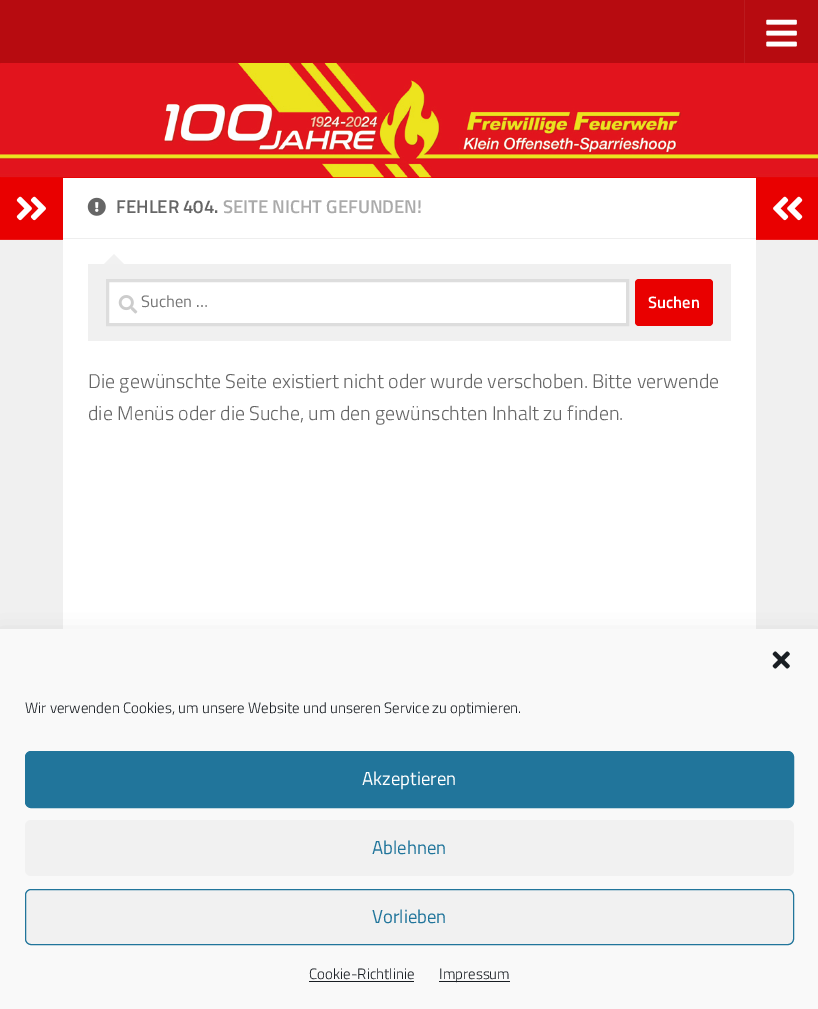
%!PS
<< /PageSize [818 1009] /PageUsesTransparency true >> setpagedevice
/m/moveto load def
/l/rlineto load def
/z/closepath load def
/f/fill load def
/s/stroke load def
/q/gsave load def
/Q_/grestore load def
/w/setlinewidth load def
/C { dup -16 bitshift 255 div exch dup -8 bitshift 255 and 255 div exch 255 and 255 div setrgbcolor } def
/F { [ exch dup neg 0 0 3 -1 roll 0 0 ] selectfont } def
/T { moveto show } def
/R { rectfill } def
/A { dup .setfillconstantalpha .setstrokeconstantalpha } def
/Q { 5 dict begin { /r /h /w /y /x } { exch def } forall
  x r add y moveto x w add y 2 copy h add r arct x w add y h add x 1 index r arct
  x y h add x y r arct x y 2 copy exch w add exch r arct closepath end } def
/S { 12 dict begin { /a /b /q /h /w /y /x } { exch def } forall gsave /was 0 def
  9 -2 -9 { dup b mul 4 div /e exch def 1 sub .425 mul 2.718 exch exp 1 add a .99 .min exch div /now exch def
    1 1 now sub 1 was sub div sub A /was now def
    w h .min e 2 mul add 0 gt { x e sub y e sub w e 2 mul add h e 2 mul add
      q e add b .6 mul add w h .min 2 div e add .min 0 .max Q fill } if } for grestore end } def
/I { 5 dict begin { /h /w /y /x /name } { exch def } forall
  gsave x y translate w h scale
  w h 8 [w 0 0 h 0 0] name (r) file false 3 colorimage grestore end } def
0 .pushpdf14devicefilter
0 1009 translate 1 -1 scale
4 setmiterlimit
16#E90000 C
0 0 818 1009 R
16#B70B10 C
0 0 818 63 R
16#BB1A1E C
744 0 1 63 R
(1.rgb) 766 19 31 28 I
(2.rgb) 0 63 818 115 I
16#FFFFFF C
63 178 693 451 R
16#F0F0F0 C
0 240 63 389 R
16#EB1A1A C
0 239 63 1 R
(3.rgb) 16 196 30 25 I
16#EEEEEE C
63 238 693 1 R
(4.rgb) 87 197 19 19 I
/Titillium-SemiBold 18.5 F
16#666666 C
(FEHLER 404.) 116 213 T
16#AAAAAA C
(SEITE NICHT GEFUNDEN!) 223 213 T
16#F0F0F0 C
88 264 643 77 R
16#F1F1F1 C
124 264 m -20 0 l 10 -10 l z f
16#FFFFFF C
107.5 280.5 m 520 0 l 0 44 l -520 0 l z q f Q_
16#DDDDDD C
3 w
s
(5.rgb) 118 295 20 19 I
/Titillium-Regular 16.5 F
16#757575 C
(Suchen …) 141 307 T
16#E90000 C
635 279 78 47 4 Q f
/Titillium-SemiBold 16.5 F
16#FFFFFF C
(Suchen) 648 308 T
/Titillium-Light 19.9 F
16#666666 C
(Die gewünschte Seite existiert nicht oder wurde verschoben. Bitte verwende) 88 388 T
(die Menüs oder die Suche, um den gewünschten Inhalt zu finden.) 88 420 T
16#EB1A1A C
756 239 62 1 R
(6.rgb) 773 196 30 25 I
16#F0F0F0 C
756 240 62 389 R
16#000000 C
0 641 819 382 0 12.5 .19 S
16#F9F9F9 C
0 629 818 380 R
(7.rgb) 772 651 18 18 I
/Titillium-Light 15 F
16#191E23 C
(Wir verwenden Cookies, um unsere Website und unseren Service zu optimieren.) 25 713 T
16#21759B C
25.5 751.5 768 56 5.5 Q q f Q_
1 w
s
/Titillium-Regular 18.75 F
16#FFFFFF C
(Akzeptieren) 362 785 T
16#F1F1F1 C
25 820 769 56 6 Q f
16#21759B C
(Ablehnen) 372 854 T
16#F1F1F1 C
25.5 889.5 768 55 5.5 Q q f Q_
16#21759B C
s
(Vorlieben) 372 923 T
/Titillium-Light 15 F
16#191E23 C
(Cookie-Richtlinie) 309 979 T
309 981 105 1 R
439 981 71 1 R
(Impressum) 439 979 T
.poppdf14devicefilter showpage
